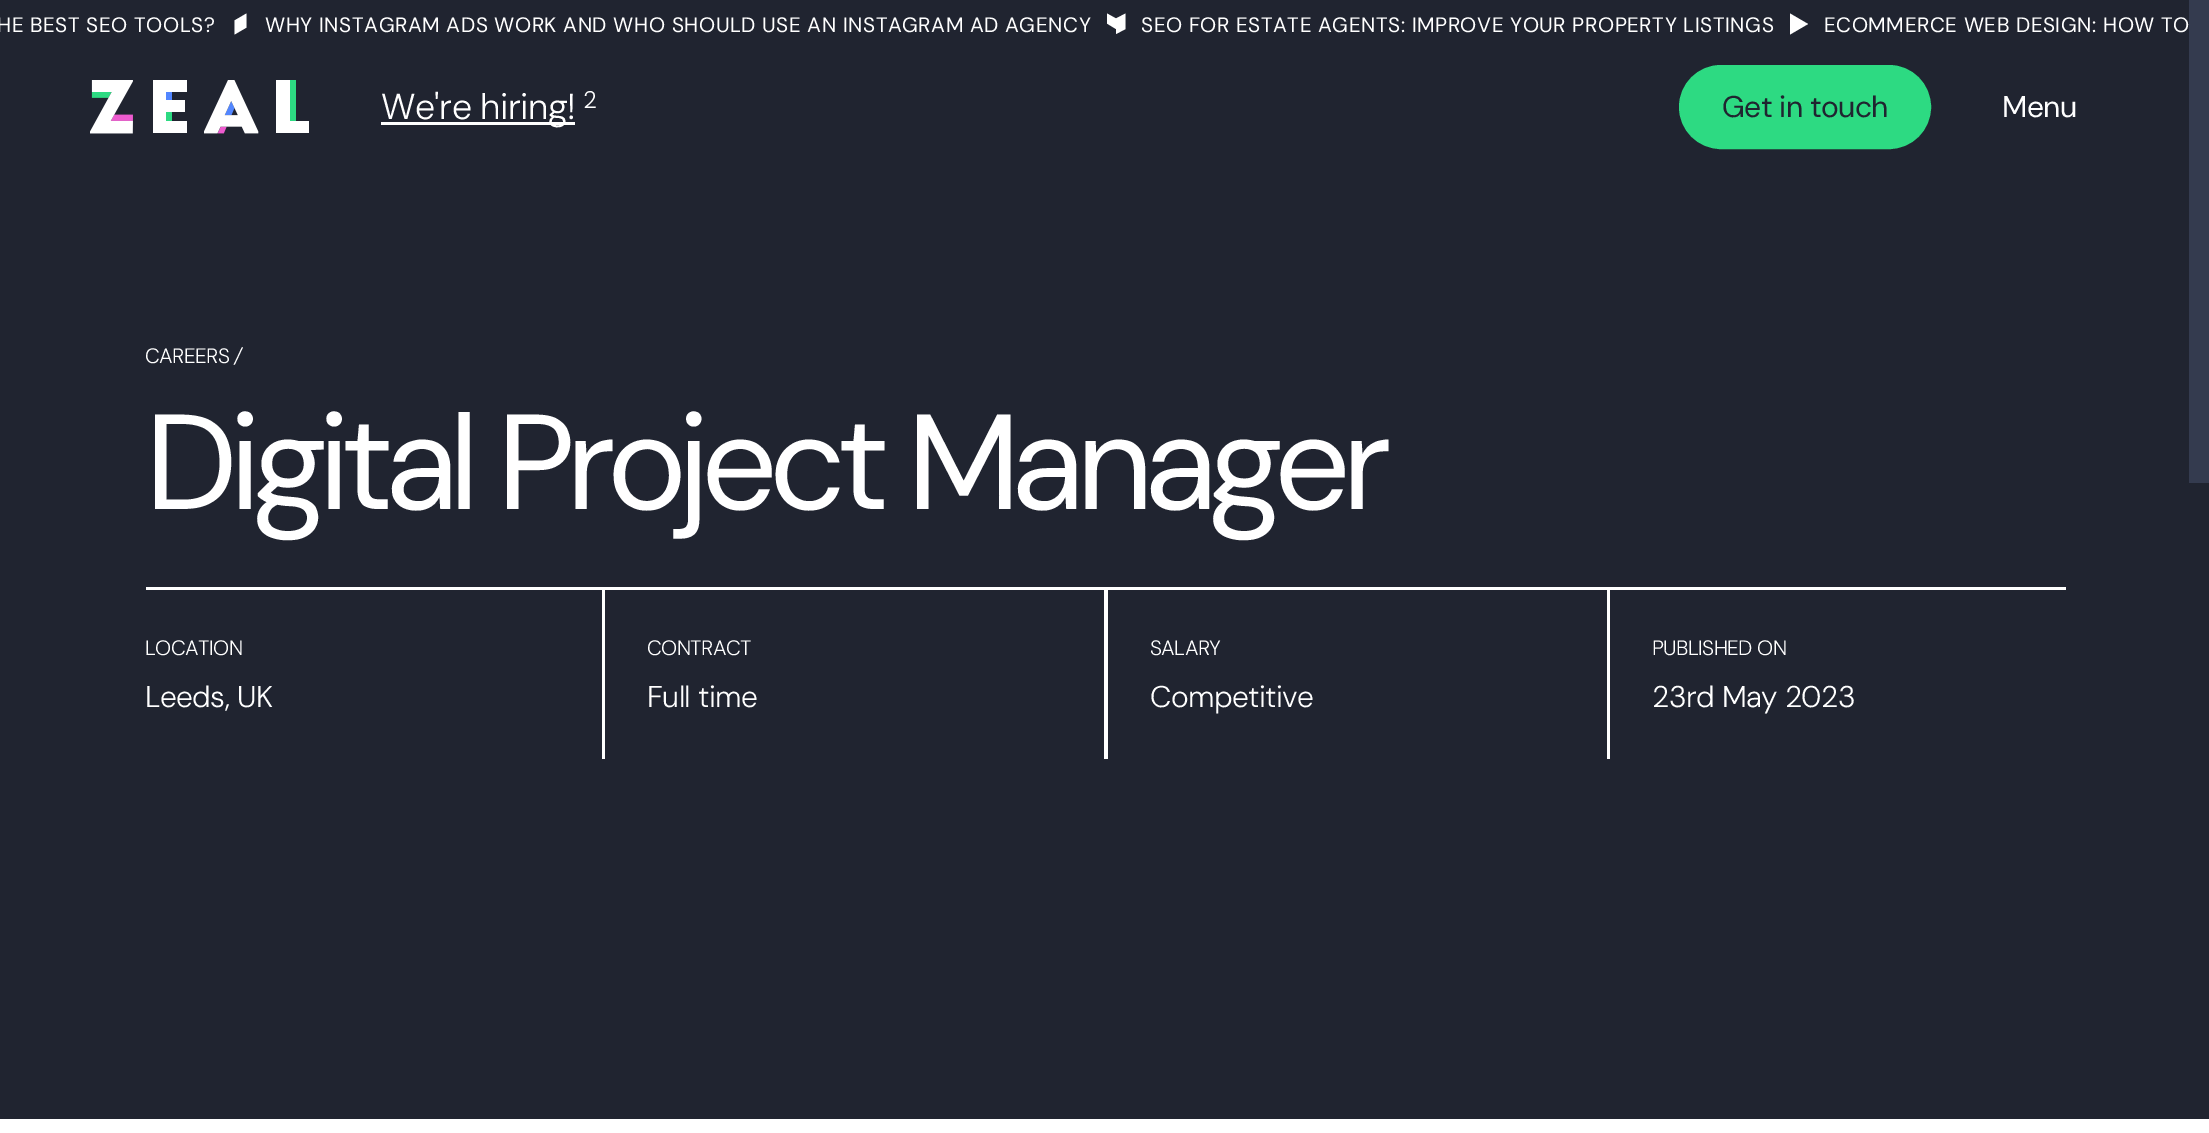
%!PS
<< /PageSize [2209 1133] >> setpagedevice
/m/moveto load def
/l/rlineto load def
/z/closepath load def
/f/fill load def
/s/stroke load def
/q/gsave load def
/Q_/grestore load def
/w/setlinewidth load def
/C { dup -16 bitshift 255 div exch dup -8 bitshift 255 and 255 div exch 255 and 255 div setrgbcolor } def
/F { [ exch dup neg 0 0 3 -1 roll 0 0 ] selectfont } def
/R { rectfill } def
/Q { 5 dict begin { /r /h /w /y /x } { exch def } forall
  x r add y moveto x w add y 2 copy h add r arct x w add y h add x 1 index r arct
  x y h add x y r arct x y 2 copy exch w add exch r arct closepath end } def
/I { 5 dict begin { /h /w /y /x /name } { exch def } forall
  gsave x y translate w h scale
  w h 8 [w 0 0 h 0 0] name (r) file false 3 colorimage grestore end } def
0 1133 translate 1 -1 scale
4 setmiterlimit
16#FFFFFF C
0 0 2209 1133 R
16#202430 C
0 0 2209 1119 R
/DMSans-Regular 20.85 F
16#FFFFFF C
-3 32 m .52 0 (HE BEST SEO TOOLS?) ashow
246.5 13.5 m 0 14 l -12 7 l 0 -14 l z f
265 32 m .52 0 (WHY INSTAGRAM ADS WORK AND WHO SHOULD USE AN INSTAGRAM AD AGENCY) ashow
1125.5 13.5 m -9.5 5 l -9 -5 l 0 10 l 9 5.5 l 0 5 l 9.5 -5 l z f
1141 32 m .52 0 (SEO FOR ESTATE AGENTS: IMPROVE YOUR PROPERTY LISTINGS) ashow
1790 13.5 m 0 21 l 18 -10.5 l z f
1824 32 m .52 0 (ECOMMERCE WEB DESIGN: HOW TO) ashow
(1.rgb) 90 80 43 54 I
16#5286FF C
166 92 6 8 R
16#2DDA82 C
166 112 6 9 R
q
153 80 35 54 rectclip
16#FFFFFF C
166 121 m 0 -9 l 19 0 l 0 -12 l -19 0 l 0 -8 l 21 0 l 0 -13 l -34 0 l 0 54 l 34 0 l 0 -12 l z f
Q_
(2.rgb) 204 80 55 54 I
290 80 6 41 R
q
276 80 33 54 rectclip
16#FFFFFF C
290 121 m 0 -42 l -14 0 l 0 54 l 33 0 l 0 -12 l z f
Q_
16#FFFFFF C
381 122 194 3 R
/DMSans-Light 36 F
381 119 m -.6 0 (We're hiring!) ashow
/DMSans-Light 24 F
583 108 m -.6 0 (2) ashow
16#2DDA82 C
1680 66 250 82 41 Q q f Q_
2 w
s
/DMSans-Regular 30 F
16#202430 C
1722 117 m -.6 0 (Get in touch) ashow
16#FFFFFF C
2002 117 m -.6 0 (Menu) ashow
16#343B4F C
2189 0 20 483 R
q
146 162 1920 957 rectclip
/DMSans-Light 20.85 F
16#FFFFFF C
145 363 m -.6 0 (CAREERS) ashow
Q_
/DMSans-LightItalic 20.85 F
16#FFFFFF C
234 363 m -.6 0 (/) ashow
/DMSans-Regular 135 F
145 509 m -9.2 0 (Digital Project Manager) ashow
146 587 1920 3 R
/DMSans-Light 20.85 F
145 655 m -.6 0 (LOCATION) ashow
/DMSans-Light 30 F
145 707 m -.6 0 (Leeds, UK) ashow
602 590 3 169 R
/DMSans-Light 20.85 F
647 655 m -.6 0 (CONTRACT) ashow
/DMSans-Light 30 F
647 707 m -.6 0 (Full time) ashow
1104 590 4 169 R
/DMSans-Light 20.85 F
1150 655 m -.6 0 (SALARY) ashow
/DMSans-Light 30 F
1150 707 m -.6 0 (Competitive) ashow
1607 590 3 169 R
/DMSans-Light 20.85 F
1652 655 m -.6 0 (PUBLISHED ON) ashow
/DMSans-Light 30 F
1652 707 m -.6 0 (23rd May 2023) ashow
showpage
